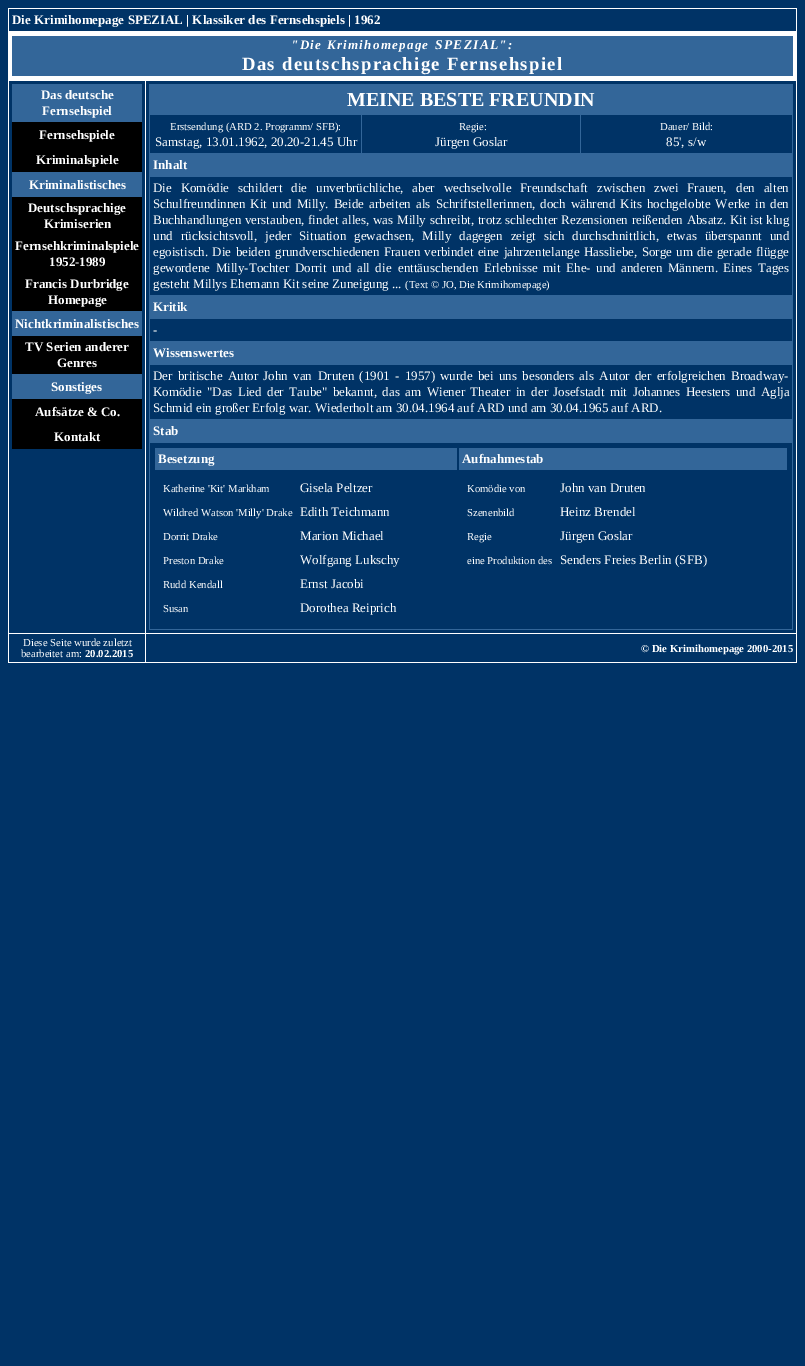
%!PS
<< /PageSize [805 1366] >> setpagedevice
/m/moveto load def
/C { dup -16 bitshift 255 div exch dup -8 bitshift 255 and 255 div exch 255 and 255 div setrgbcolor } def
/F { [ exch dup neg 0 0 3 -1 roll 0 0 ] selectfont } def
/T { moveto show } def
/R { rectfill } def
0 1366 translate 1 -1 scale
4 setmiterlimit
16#003366 C
0 0 805 1366 R
16#FFFFFF C
8 8 789 1 R
796 8 1 24 R
8 31 789 5 R
8 8 1 24 R
/LiberationSerif-Bold 13 F
(Die Krimihomepage SPEZIAL | Klassiker des Fernsehspiels | 1962) 12 24 T
793 32 4 48 R
8 76 789 5 R
8 32 4 48 R
16#336699 C
12 36 781 40 R
/LiberationSerif-BoldItalic 13 F
16#FFFFFF C
291 49 m 1.3 0 ("Die Krimihomepage) ashow
/LiberationSerif-BoldItalic 13.5 F
435 49 m 1.3 0 (SPEZIAL) ashow
/LiberationSerif-BoldItalic 13 F
499 49 m 1.3 0 (":) ashow
/LiberationSerif-Bold 18.7 F
242 70 m 1.3 0 (Das deutschsprachige Fernsehspiel) ashow
796 80 1 583 R
8 662 789 1 R
8 80 1 583 R
16#336699 C
12 84 130 38 R
/LiberationSerif-Bold 13 F
16#FFFFFF C
(Das deutsche) 41 99 T
(Fernsehspiel) 42 115 T
16#000000 C
12 122 130 50 R
16#FFFFFF C
(Fernsehspiele) 39 139 T
(Kriminalspiele) 36 164 T
16#336699 C
12 172 130 25 R
16#FFFFFF C
(Kriminalistisches) 29 189 T
16#000000 C
12 197 130 114 R
16#FFFFFF C
(Deutschsprachige) 28 212 T
(Krimiserien) 44 228 T
(Fernsehkriminalspiele) 15 250 T
(1952-1989) 49 266 T
(Francis Durbridge) 25 288 T
(Homepage) 48 304 T
16#336699 C
12 311 130 25 R
16#FFFFFF C
(Nichtkriminalistisches) 15 328 T
16#000000 C
12 336 130 38 R
16#FFFFFF C
(TV Serien anderer) 25 351 T
(Genres) 57 367 T
16#336699 C
12 374 130 25 R
16#FFFFFF C
(Sonstiges) 51 391 T
16#000000 C
12 399 130 50 R
16#FFFFFF C
(Aufsätze & Co.) 35 416 T
(Kontakt) 54 441 T
145 633 652 1 R
145 633 1 30 R
8 633 138 1 R
145 80 1 554 R
16#336699 C
149 84 644 1 R
792 84 1 546 R
149 629 644 1 R
149 84 1 546 R
150 85 642 30 R
/LiberationSerif-Bold 20 F
16#FFFFFF C
(MEINE BESTE FREUNDIN) 347 106 T
/LiberationSerif-Regular 10.7 F
(Erstsendung \(ARD 2. Programm/ SFB\):) 170 130 T
/LiberationSerif-Regular 13 F
(Samstag, 13.01.1962, 20.20-21.45 Uhr) 155 146 T
16#336699 C
149 153 644 1 R
361 114 1 40 R
/LiberationSerif-Regular 10.7 F
16#FFFFFF C
(Regie:) 459 130 T
/LiberationSerif-Regular 13 F
(Jürgen Goslar) 435 146 T
16#336699 C
580 114 1 40 R
/LiberationSerif-Regular 10.7 F
16#FFFFFF C
(Dauer/ Bild:) 660 130 T
/LiberationSerif-Regular 13 F
(85', s/w) 666 146 T
16#336699 C
150 154 642 23 R
/LiberationSerif-Bold 13 F
16#FFFFFF C
(Inhalt) 153 169 T
/LiberationSerif-Regular 13 F
153 192 m 5.5 0 32 (Die Komödie schildert die) widthshow
316 192 m 5.5 0 32 (unverbrüchliche, aber wechselvolle Freundschaft zwischen zwei Frauen,) widthshow
736 192 m 5.5 0 32 (den alten) widthshow
153 208 m 1.75 0 32 (Schulfreundinnen Kit und Milly. Beide arbeiten als) widthshow
436 208 m 1.75 0 32 (Schriftstellerinnen, doch während Kits hochgelobte Werke in den) widthshow
153 224 m .5 0 32 (Buchhandlungen verstauben, findet alles, was Milly schreibt, trotz) widthshow
505 224 m .5 0 32 (schlechter Rezensionen reißenden Absatz. Kit ist klug) widthshow
(und) 153 240 T
181 240 m 4.75 0 32 (rücksichtsvoll, jeder Situation gewachsen, Milly dagegen zeigt sich) widthshow
572 240 m 4.75 0 32 (durchschnittlich, etwas überspannt und) widthshow
153 256 m 1 0 32 (egoistisch. Die beiden) widthshow
275 256 m 1 0 32 (grundverschiedenen Frauen verbindet eine jahrzentelange Hassliebe, Sorge) widthshow
676 256 m 1 0 32 (um die gerade flügge) widthshow
153 272 m 2.25 0 32 (gewordene Milly-Tochter Dorrit und all die) widthshow
398 272 m 2.25 0 32 (enttäuschenden Erlebnisse mit Ehe- und anderen Männern. Eines Tages) widthshow
(gesteht Millys Ehemann Kit seine Zuneigung ...) 153 288 T
/LiberationSerif-Regular 10.7 F
(\(Text © JO, Die Krimihomepage\)) 405 288 T
16#336699 C
150 296 642 23 R
149 295 644 1 R
/LiberationSerif-Bold 13 F
16#FFFFFF C
(Kritik) 153 311 T
/LiberationSerif-Regular 13 F
(-) 153 334 T
16#336699 C
150 342 642 23 R
149 341 644 1 R
/LiberationSerif-Bold 13 F
16#FFFFFF C
(Wissenswertes) 153 357 T
/LiberationSerif-Regular 13 F
153 380 m 2 0 32 (Der britische Autor John van) widthshow
318 380 m 2 0 32 (Druten \(1901 - 1957\) wurde bei uns besonders als Autor der erfolgreichen) widthshow
(Broadway-) 731 380 T
153 396 m 2.25 0 32 (Komödie "Das Lied der Taube" bekannt, das am Wiener Theater in der) widthshow
553 396 m 2.25 0 32 (Josefstadt mit Johannes Heesters und Aglja) widthshow
(Schmid ein großer Erfolg war. Wiederholt am 30.04.1964 auf ARD und am 30.04.1965 auf ARD.) 153 412 T
16#336699 C
149 419 644 1 R
150 420 642 23 R
/LiberationSerif-Bold 13 F
16#FFFFFF C
(Stab) 153 435 T
16#336699 C
155 448 302 22 R
16#FFFFFF C
(Besetzung) 158 463 T
16#336699 C
459 448 328 22 R
16#FFFFFF C
(Aufnahmestab) 462 463 T
/LiberationSerif-Regular 10.7 F
(Katherine 'Kit' Markham) 163 492 T
/LiberationSerif-Regular 13 F
(Gisela Peltzer) 300 492 T
/LiberationSerif-Regular 10.7 F
(Wildred Watson 'Milly' Drake) 163 516 T
/LiberationSerif-Regular 13 F
(Edith Teichmann) 300 516 T
/LiberationSerif-Regular 10.7 F
(Dorrit Drake) 163 540 T
/LiberationSerif-Regular 13 F
(Marion Michael) 300 540 T
/LiberationSerif-Regular 10.7 F
(Preston Drake) 163 564 T
/LiberationSerif-Regular 13 F
(Wolfgang Lukschy) 300 564 T
/LiberationSerif-Regular 10.7 F
(Rudd Kendall) 163 588 T
/LiberationSerif-Regular 13 F
(Ernst Jacobi) 300 588 T
/LiberationSerif-Regular 10.7 F
(Susan) 163 612 T
/LiberationSerif-Regular 13 F
(Dorothea Reiprich) 300 612 T
/LiberationSerif-Regular 10.7 F
(Komödie von) 467 492 T
/LiberationSerif-Regular 13 F
(John van Druten) 560 492 T
/LiberationSerif-Regular 10.7 F
(Szenenbild) 467 516 T
/LiberationSerif-Regular 13 F
(Heinz Brendel) 560 516 T
/LiberationSerif-Regular 10.7 F
(Regie) 467 540 T
/LiberationSerif-Regular 13 F
(Jürgen Goslar) 560 540 T
/LiberationSerif-Regular 10.7 F
(eine Produktion des) 467 564 T
/LiberationSerif-Regular 13 F
(Senders Freies Berlin \(SFB\)) 560 564 T
/LiberationSerif-Regular 10.7 F
(Diese Seite wurde zuletzt) 23 646 T
(bearbeitet am:) 21 657 T
/LiberationSerif-Bold 10.7 F
(20.02.2015) 85 657 T
(© Die Krimihomepage 2000-2015) 641 652 T
showpage
